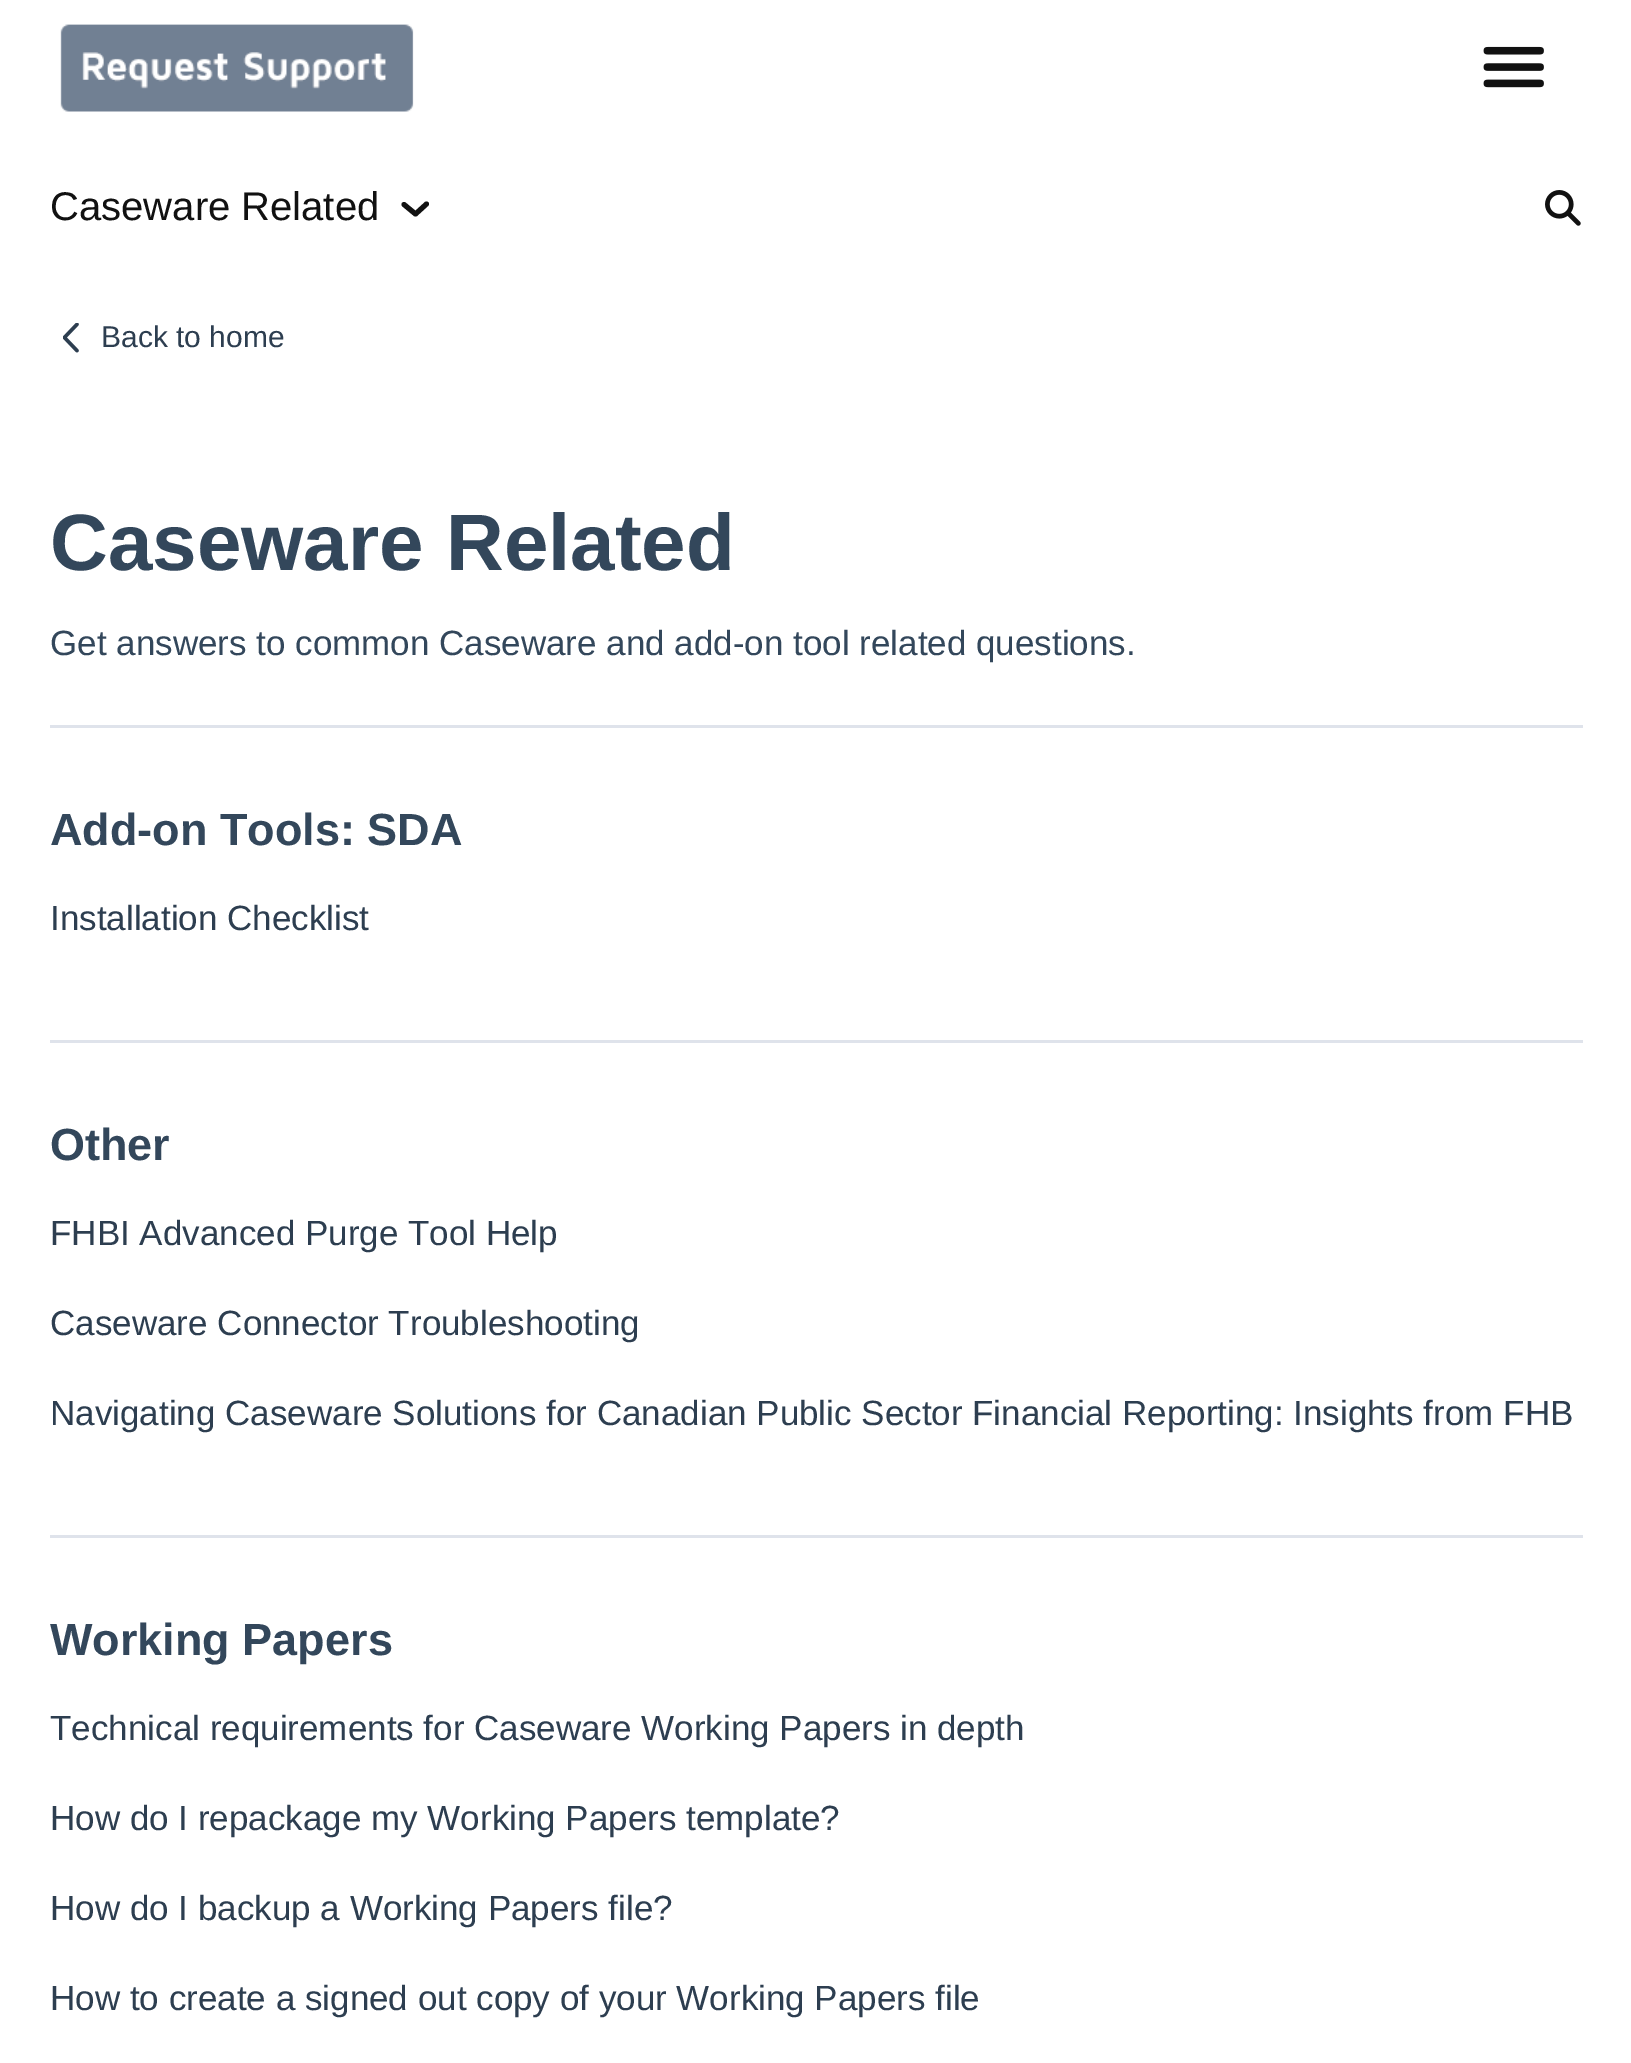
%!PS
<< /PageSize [1631 2063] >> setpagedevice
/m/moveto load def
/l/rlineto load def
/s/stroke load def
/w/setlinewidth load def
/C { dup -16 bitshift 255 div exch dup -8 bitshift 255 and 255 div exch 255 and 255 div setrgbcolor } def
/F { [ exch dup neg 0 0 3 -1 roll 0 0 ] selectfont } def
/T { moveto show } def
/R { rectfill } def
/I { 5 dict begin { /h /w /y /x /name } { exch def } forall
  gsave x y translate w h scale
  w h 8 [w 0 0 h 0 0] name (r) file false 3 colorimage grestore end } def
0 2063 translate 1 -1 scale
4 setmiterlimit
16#FFFFFF C
0 0 1631 2063 R
(1.rgb) 60 24 354 88 I
(2.rgb) 1483 46 61 42 I
/LiberationSans-Regular 40 F
16#111111 C
(Caseware Related) 50 220 T
5 w
1 setlinecap
1 setlinejoin
426.5 204 m -11 10 l -11.5 -9.5 l s
(3.rgb) 1545 190 36 36 I
(4.rgb) 63 323 16 30 I
/LiberationSans-Regular 30 F
16#2D3E50 C
(Back to home) 101 347 T
/LiberationSans-Bold 80 F
16#33475B C
(Caseware Related) 50 570 T
16#DFE3EB C
50 725 1533 3 R
/LiberationSans-Regular 35 F
16#33475B C
(Get answers to common Caseware and add-on tool related questions.) 50 655 T
16#DFE3EB C
50 1040 1533 3 R
/LiberationSans-Bold 45 F
16#33475B C
(Add-on Tools: SDA) 50 845 T
/LiberationSans-Regular 35 F
16#2D3E50 C
(Installation Checklist) 50 930 T
16#DFE3EB C
50 1535 1533 3 R
/LiberationSans-Bold 45 F
16#33475B C
(Other) 50 1160 T
/LiberationSans-Regular 35 F
16#2D3E50 C
(FHBI Advanced Purge Tool Help) 50 1245 T
(Caseware Connector Troubleshooting) 50 1335 T
(Navigating Caseware Solutions for Canadian Public Sector Financial Reporting: Insights from FHB) 50 1425 T
/LiberationSans-Bold 45 F
16#33475B C
(Working Papers) 50 1655 T
/LiberationSans-Regular 35 F
16#2D3E50 C
(Technical requirements for Caseware Working Papers in depth) 50 1740 T
(How do I repackage my Working Papers template?) 50 1830 T
(How do I backup a Working Papers file?) 50 1920 T
(How to create a signed out copy of your Working Papers file) 50 2010 T
showpage
